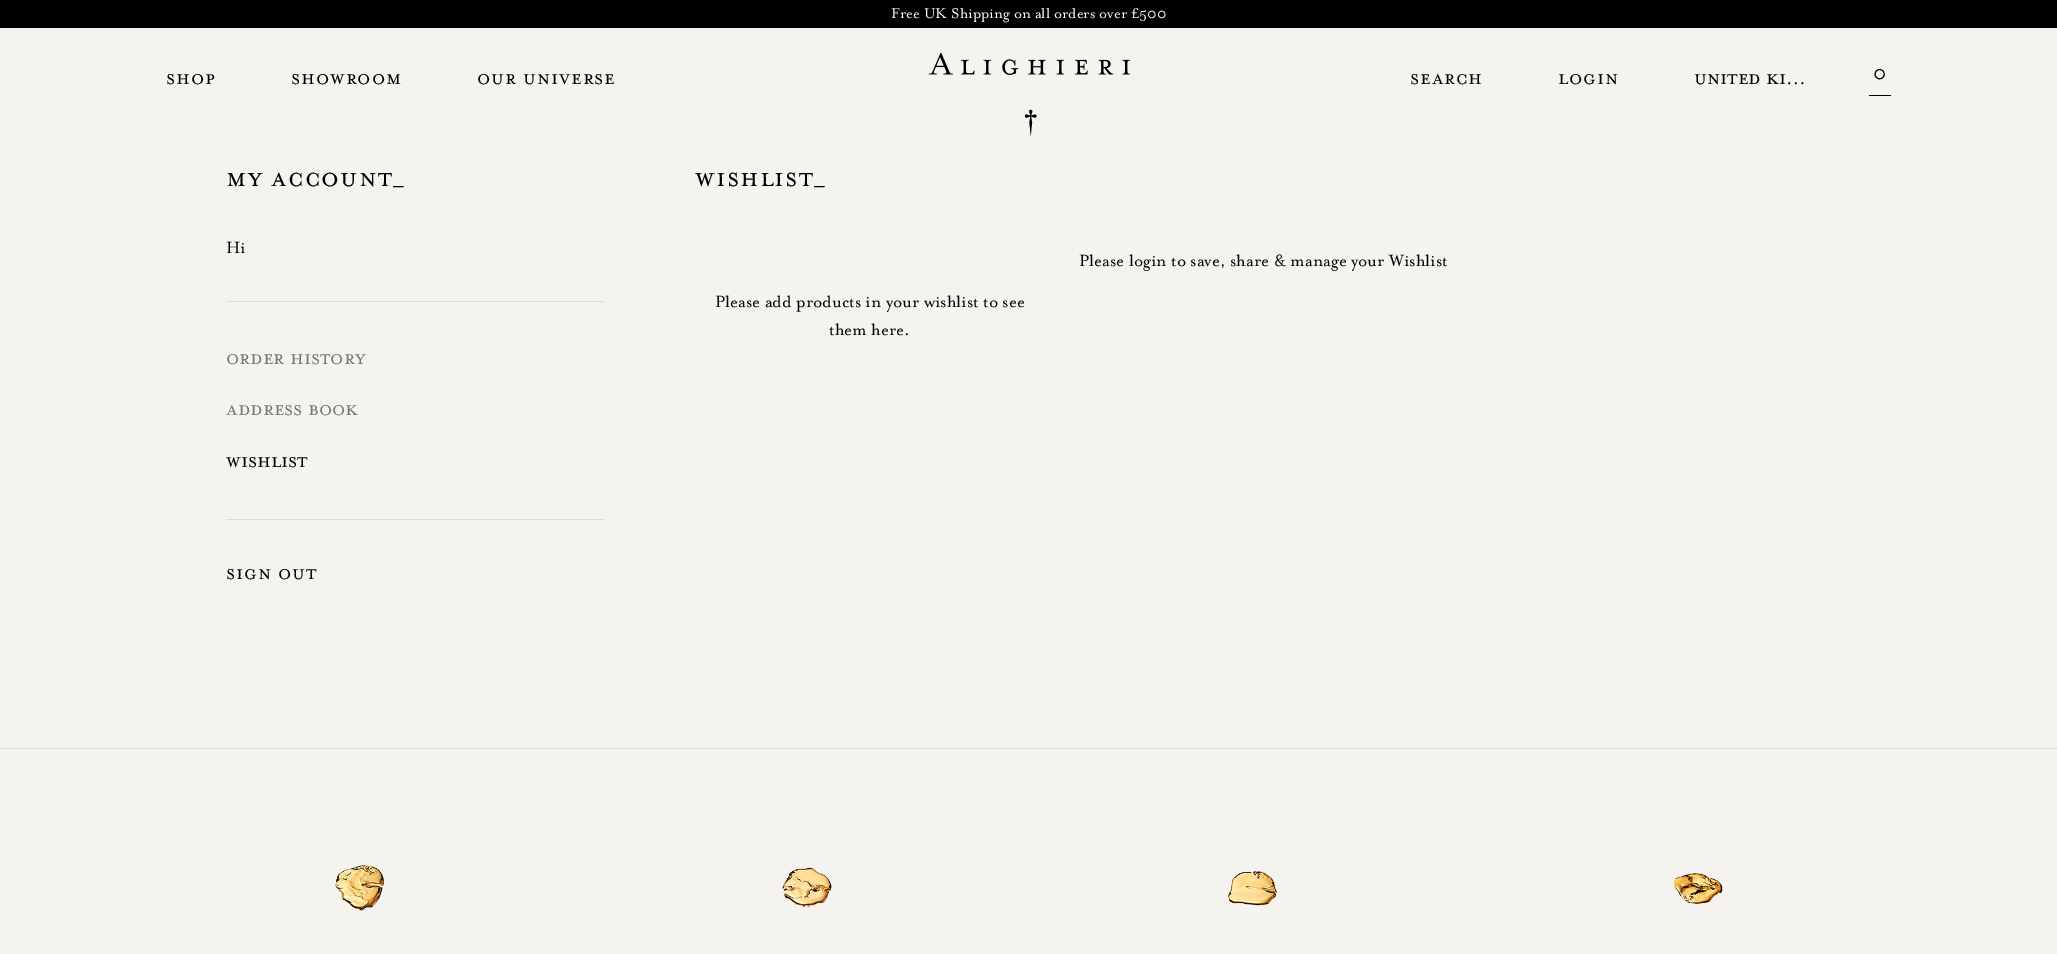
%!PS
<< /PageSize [2057 954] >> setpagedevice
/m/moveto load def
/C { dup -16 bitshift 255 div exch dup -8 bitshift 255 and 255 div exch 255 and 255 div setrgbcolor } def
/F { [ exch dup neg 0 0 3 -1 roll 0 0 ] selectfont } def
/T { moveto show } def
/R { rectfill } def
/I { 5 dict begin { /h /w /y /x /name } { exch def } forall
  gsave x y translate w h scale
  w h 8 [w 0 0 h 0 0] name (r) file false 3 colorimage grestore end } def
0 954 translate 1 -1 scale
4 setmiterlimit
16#F5F3EF C
0 0 2057 954 R
16#000000 C
0 0 2057 28 R
/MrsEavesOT-Regular 16.25 F
16#FFFFFF C
(Free UK Shipping on all orders over £500) 891 18 T
/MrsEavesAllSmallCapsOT-Regular 22.5 F
16#000000 C
166 84 m .9 0 (SHOP) ashow
291 84 m .9 0 (SHOWROOM) ashow
477 84 m .9 0 (OUR UNIVERSE) ashow
(1.rgb) 928 53 202 83 I
1410 84 m .9 0 (SEARCH) ashow
1558 84 m .9 0 (LOGIN) ashow
(United Ki…) 1694 84 T
1869 95 22 1 R
/MrsEavesOT-Regular 22.5 F
1873 79 m .9 0 (0) ashow
/MrsEavesAllSmallCapsOT-Regular 30 F
226 186 m 1.25 0 (My account_) ashow
/MrsEavesOT-Regular 18.75 F
(Hi) 226 253 T
16#DFDCD6 C
226 301 379 1 R
226 519 379 1 R
/MrsEavesAllSmallCapsOT-Regular 22.5 F
16#777777 C
(ORDER HISTORY) 226 364 T
(ADDRESS BOOK) 226 415 T
16#000000 C
(WISHLIST) 226 467 T
226 579 m .9 0 (Sign out) ashow
/MrsEavesAllSmallCapsOT-Regular 30 F
695 186 m 1.25 0 (Wishlist_) ashow
/MrsEavesOT-Regular 18.75 F
(Please login to save, share & manage your Wishlist) 1079 266 T
(Please add products in your wishlist to see) 715 307 T
(them here.) 829 335 T
16#DFDCD6 C
0 748 2057 1 R
(2.rgb) 335 865 49 46 I
(3.rgb) 781 867 51 41 I
(4.rgb) 1228 871 50 35 I
(5.rgb) 1673 873 50 31 I
showpage
